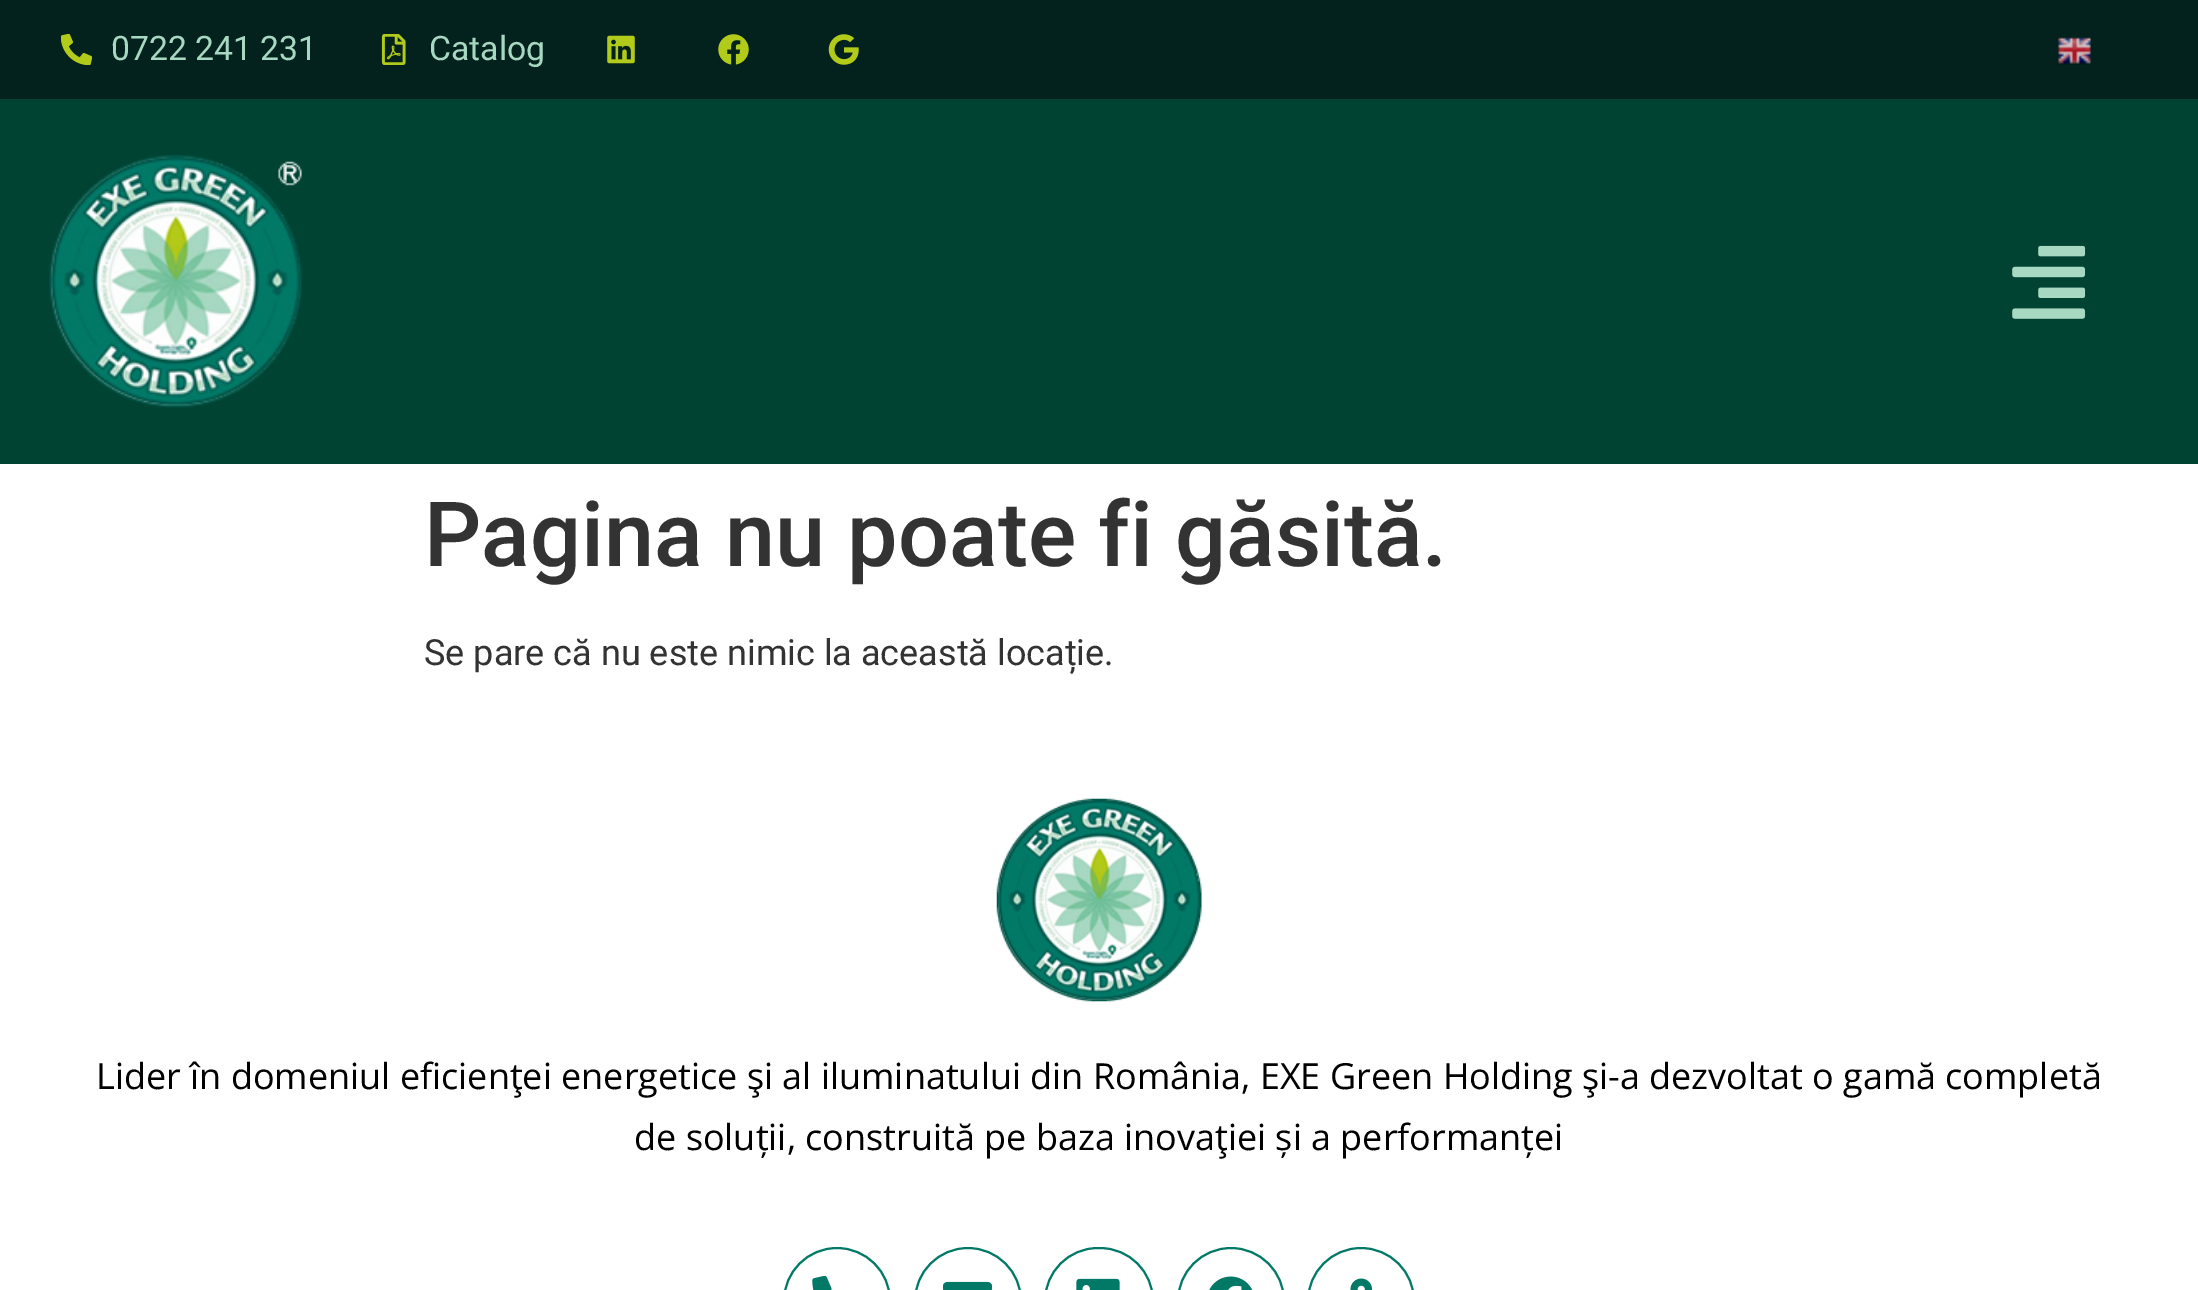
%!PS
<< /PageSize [2198 1290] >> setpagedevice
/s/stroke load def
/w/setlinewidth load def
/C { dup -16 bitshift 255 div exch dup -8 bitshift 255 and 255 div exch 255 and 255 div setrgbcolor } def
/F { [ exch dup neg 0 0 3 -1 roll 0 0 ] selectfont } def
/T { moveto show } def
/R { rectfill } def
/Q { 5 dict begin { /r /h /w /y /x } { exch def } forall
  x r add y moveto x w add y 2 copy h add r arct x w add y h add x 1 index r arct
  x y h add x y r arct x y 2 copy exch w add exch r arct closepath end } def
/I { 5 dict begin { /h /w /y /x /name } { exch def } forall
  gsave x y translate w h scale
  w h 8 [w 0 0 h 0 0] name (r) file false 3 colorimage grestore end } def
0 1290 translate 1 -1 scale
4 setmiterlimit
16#FFFFFF C
0 0 2198 1290 R
16#04221D C
0 0 2198 99 R
(1.rgb) 61 34 31 31 I
/Roboto-Regular 33.75 F
16#A7D8C1 C
(0722 241 231) 111 60 T
(2.rgb) 381 34 25 31 I
(Catalog) 429 60 T
(3.rgb) 607 35 28 29 I
(4.rgb) 718 34 31 31 I
(5.rgb) 828 34 31 31 I
(6.rgb) 2058 37 33 28 I
16#004333 C
0 99 2198 365 R
(7.rgb) 49 155 253 253 I
(8.rgb) 2012 245 74 74 I
/Roboto-Medium 90 F
16#333333 C
(Pagina nu poate fi găsită.) 424 566 T
/Roboto-Regular 36 F
(Se pare că nu este nimic la această locație.) 424 665 T
(9.rgb) 996 798 206 204 I
/OpenSans-Regular 36 F
16#000000 C
(Lider în domeniul eficienţei energetice şi al iluminatului din România, EXE Green Holding şi-a dezvoltat o gamă completă) 96 1089 T
(de soluții, construită pe baza inovaţiei și a performanței) 634 1150 T
16#017966 C
2 w
784 1248 106 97 53 Q s
(10.rgb) 812 1276 20 14 I
915 1248 106 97 53 Q s
(11.rgb) 943 1281 49 9 I
1045 1248 108 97 53 Q s
(12.rgb) 1076 1278 44 12 I
1178 1248 106 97 53 Q s
(13.rgb) 1209 1276 44 14 I
1308 1248 106 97 53 Q s
(14.rgb) 1350 1278 23 12 I
showpage
